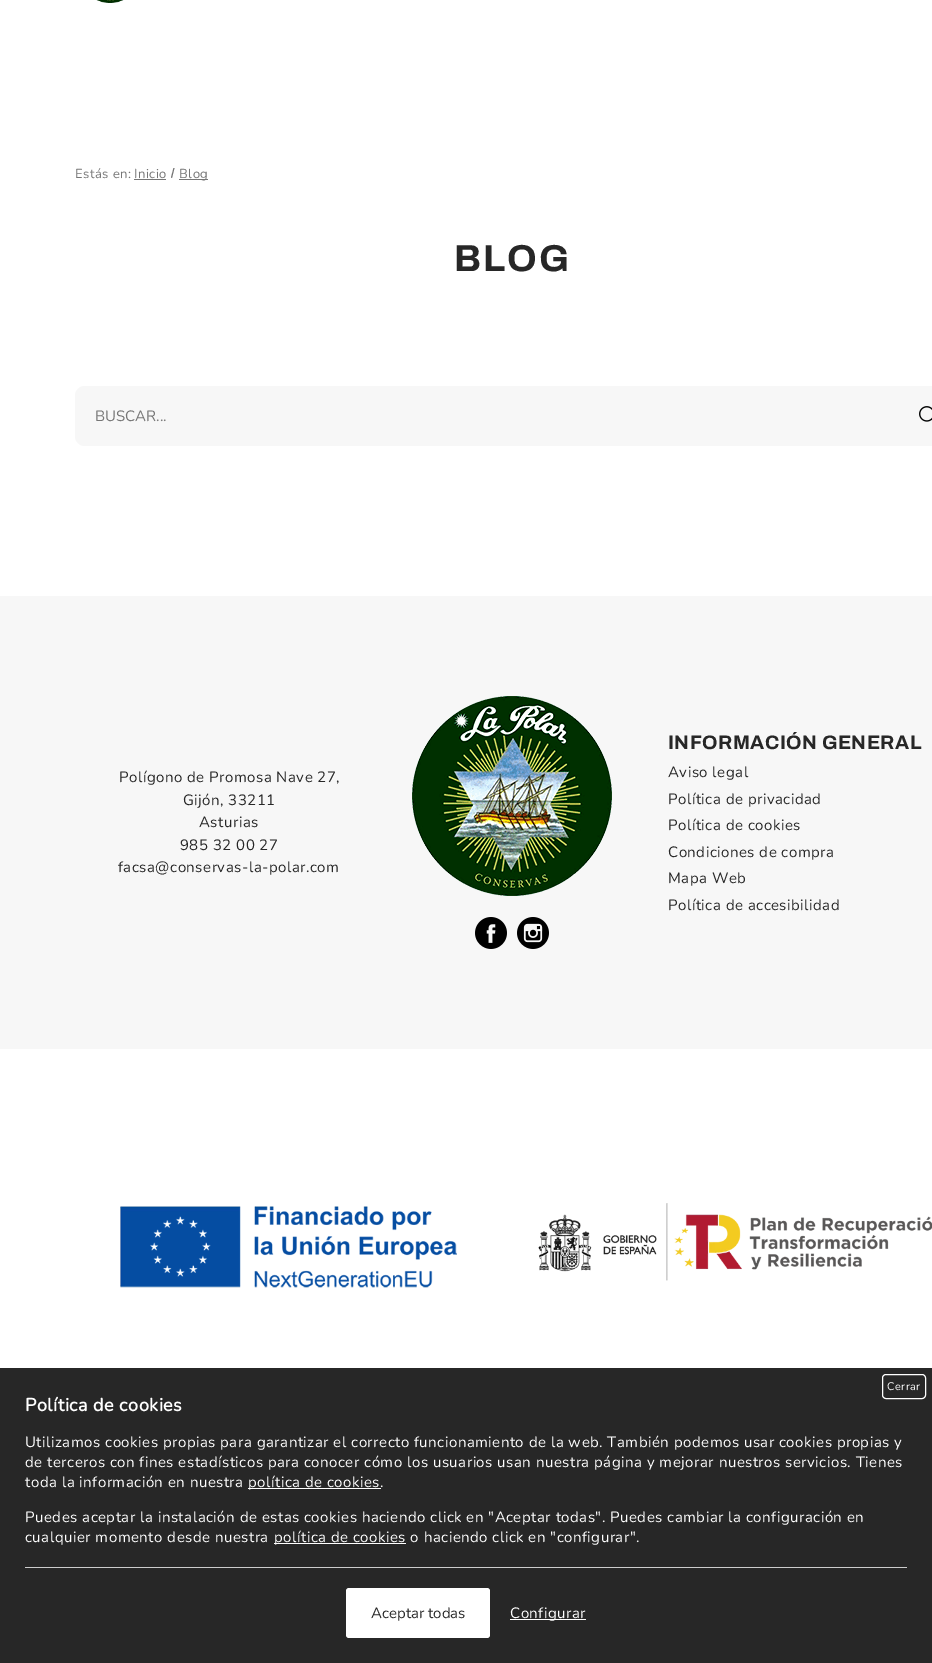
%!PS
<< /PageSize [932 1663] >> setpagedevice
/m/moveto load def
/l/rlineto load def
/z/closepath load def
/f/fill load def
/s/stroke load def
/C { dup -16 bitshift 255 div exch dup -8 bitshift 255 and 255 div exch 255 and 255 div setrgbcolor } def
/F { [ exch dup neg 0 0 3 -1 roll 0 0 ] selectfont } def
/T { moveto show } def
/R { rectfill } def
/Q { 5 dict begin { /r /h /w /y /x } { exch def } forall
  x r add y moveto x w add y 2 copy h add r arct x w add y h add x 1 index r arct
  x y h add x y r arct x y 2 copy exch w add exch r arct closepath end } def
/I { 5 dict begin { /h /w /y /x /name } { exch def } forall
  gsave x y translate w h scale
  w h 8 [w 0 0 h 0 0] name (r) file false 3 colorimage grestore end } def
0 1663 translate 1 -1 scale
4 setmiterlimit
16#FFFFFF C
0 0 932 1663 R
(1.rgb) 96 0 28 3 I
/Nunito-Regular 13 F
16#767676 C
75 178 m .49 0 (Estás en:) ashow
134 178 m .49 0 (Inicio) ashow
134 179 32 1 R
173.5 168 m 1 0 l -2.5 10 l -1 -.5 l z f
179 179 29 1 R
179 178 m .49 0 (Blog) ashow
/Archivo-Bold 37.5 F
16#272727 C
454 271 m 2 0 (BLOG) ashow
16#F7F7F7 C
75 386 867 60 10 Q f
/Nunito-Regular 15 F
16#767676 C
(BUSCAR...) 95 421 T
(2.rgb) 919 406 13 16 I
16#F7F7F7 C
0 596 932 453 R
16#272727 C
119 782 m .49 0 (Polígono de Promosa Nave 27,) ashow
183 805 m .49 0 (Gijón, 33211) ashow
199 827 m .49 0 (Asturias) ashow
180 850 m .49 0 (985 32 00 27) ashow
118 872 m .49 0 (facsa@conservas-la-polar.com) ashow
(3.rgb) 412 696 200 200 I
(4.rgb) 475 917 32 32 I
(5.rgb) 517 917 32 32 I
/Archivo-Bold 19.5 F
668 749 m .49 0 (INFORMACIÓN GENERAL) ashow
/Nunito-Regular 15 F
668 777 m .49 0 (Aviso legal) ashow
668 804 m .49 0 (Política de privacidad) ashow
668 830 m .49 0 (Política de cookies) ashow
668 857 m .49 0 (Condiciones de compra) ashow
668 883 m .49 0 (Mapa Web) ashow
668 910 m .49 0 (Política de accesibilidad) ashow
(6.rgb) 120 1206 337 82 I
(7.rgb) 538 1203 394 78 I
0 1368 932 295 R
16#FFFFFF C
882.5 1374.5 43 24 3.5 Q s
/Nunito-Regular 11 F
887 1390 m .49 0 (Cerrar) ashow
/Nunito-Bold 18 F
25 1411 m .49 0 (Política de cookies) ashow
/Nunito-Regular 15 F
25 1447 m .49 0 (Utilizamos cookies propias para garantizar el correcto funcionamiento de la web. También podemos usar cookies propias y) ashow
25 1467 m .49 0 (de terceros con fines estadísticos para conocer cómo los usuarios usan nuestra página y mejorar nuestros servicios. Tienes) ashow
25 1487 m .49 0 (toda la información en nuestra) ashow
248 1488 133 1 R
248 1487 m .49 0 (política de cookies.) ashow
25 1522 m .49 0 (Puedes aceptar la instalación de estas cookies haciendo click en "Aceptar todas". Puedes cambiar la configuración en) ashow
25 1542 m .49 0 (cualquier momento desde nuestra) ashow
274 1543 132 1 R
274 1542 m .49 0 (política de cookies o haciendo click en "configurar".) ashow
16#CCCCCC C
25 1567 882 1 R
16#FFFFFF C
346 1588 144 50 3 Q f
16#272727 C
(Aceptar todas) 371 1618 T
16#FFFFFF C
510 1619 76 1 R
510 1618 m .49 0 (Configurar) ashow
showpage
